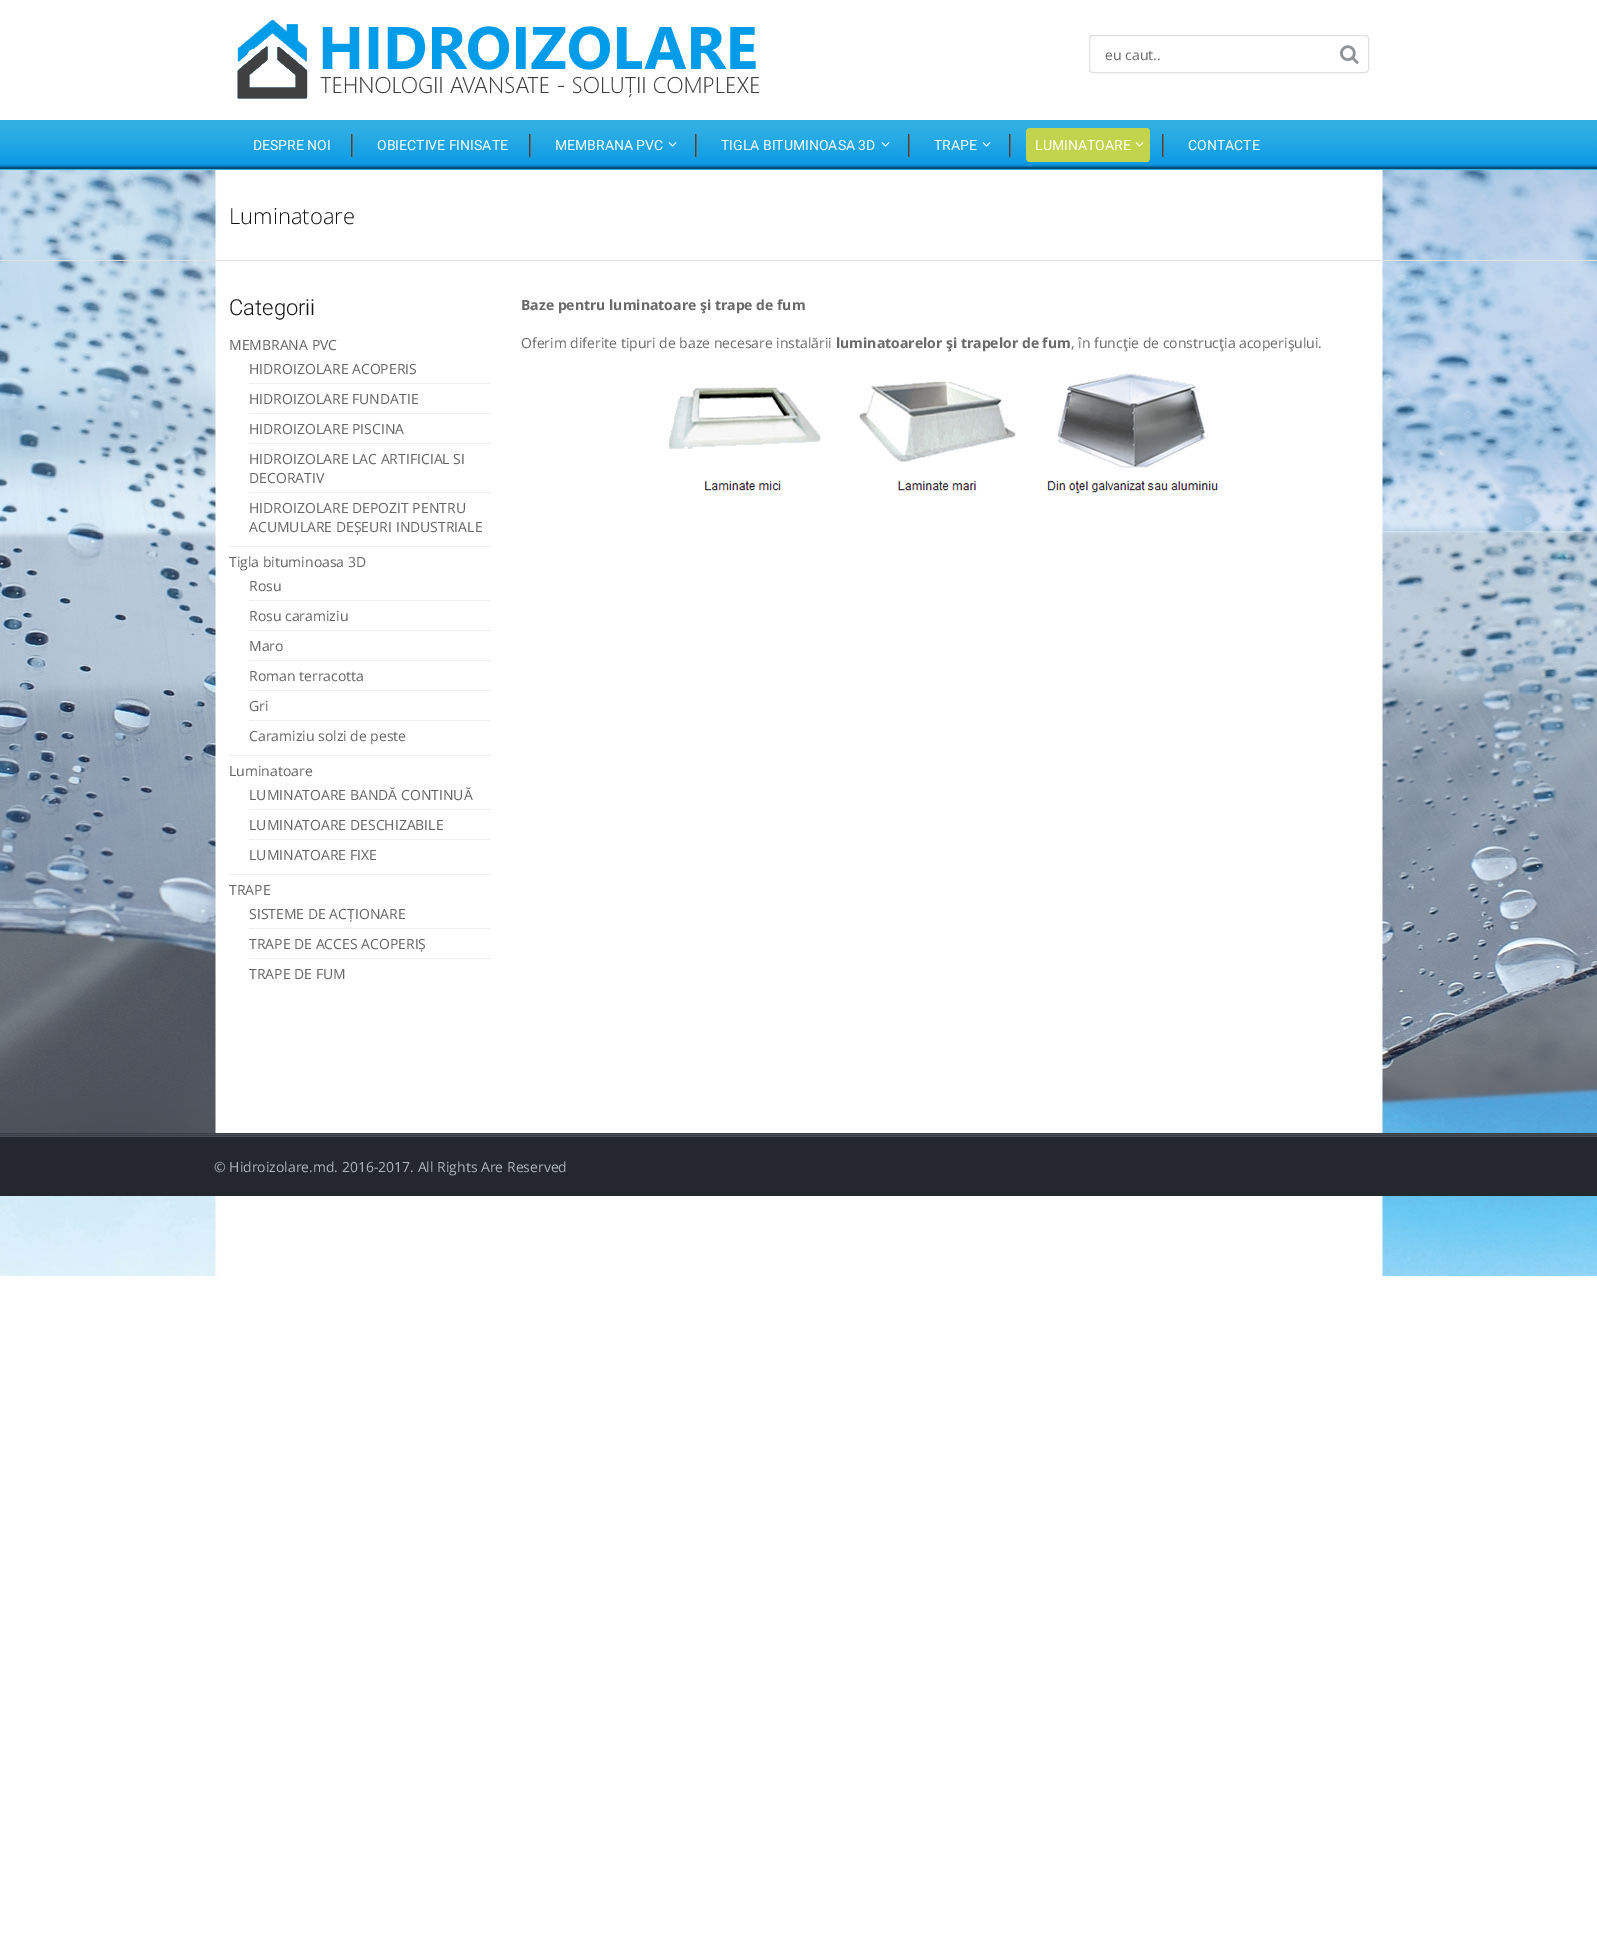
%!PS
<< /PageSize [1597 1946] >> setpagedevice
/m/moveto load def
/l/rlineto load def
/c/rcurveto load def
/z/closepath load def
/f/fill load def
/s/stroke load def
/C { dup -16 bitshift 255 div exch dup -8 bitshift 255 and 255 div exch 255 and 255 div setrgbcolor } def
/F { [ exch dup neg 0 0 3 -1 roll 0 0 ] selectfont } def
/T { moveto show } def
/R { rectfill } def
/Q { 5 dict begin { /r /h /w /y /x } { exch def } forall
  x r add y moveto x w add y 2 copy h add r arct x w add y h add x 1 index r arct
  x y h add x y r arct x y 2 copy exch w add exch r arct closepath end } def
/I { 5 dict begin { /h /w /y /x /name } { exch def } forall
  gsave x y translate w h scale
  w h 8 [w 0 0 h 0 0] name (r) file false 3 colorimage grestore end } def
0 1946 translate 1 -1 scale
4 setmiterlimit
16#FFFFFF C
0 0 1597 1946 R
(1.rgb) 0 170 1597 1106 I
(2.rgb) 237 20 523 79 I
16#E1E1E1 C
1089.5 35.5 279 37 3.5 Q s
/OpenSans-Regular 14 F
16#6A6A6A C
(eu caut..) 1105 60 T
(3.rgb) 1340 45 19 19 I
(4.rgb) 0 120 1597 50 I
/Roboto-Regular 14 F
16#FFFFFF C
(DESPRE NOI) 253 150 T
16#454545 C
351 134 1 23 R
16#676767 C
352 134 1 23 R
16#FFFFFF C
(OBIECTIVE FINISATE) 377 150 T
16#454545 C
529 134 1 23 R
16#676767 C
530 134 1 23 R
16#FFFFFF C
(MEMBRANA PVC) 555 150 T
(5.rgb) 668 142 9 5 I
16#454545 C
695 134 1 23 R
16#676767 C
696 134 1 23 R
16#FFFFFF C
(TIGLA BITUMINOASA 3D) 721 150 T
(6.rgb) 881 142 9 5 I
16#454545 C
908 134 1 23 R
16#676767 C
909 134 1 23 R
16#FFFFFF C
(TRAPE) 934 150 T
(7.rgb) 982 142 9 5 I
16#454545 C
1009 134 1 23 R
16#676767 C
1010 134 1 23 R
16#C2D44E C
1030 128 m 117 0 l 2 0 3 2 3 4 c 0 26 l 0 2 -1 4 -3 4 c -117 0 l -2 0 -4 -2 -4 -4 c 0 -26 l 0 -2 2 -4 4 -4 c z f
16#FFFFFF C
(LUMINATOARE) 1035 150 T
(8.rgb) 1135 142 9 5 I
16#454545 C
1162 134 1 23 R
16#676767 C
1163 134 1 23 R
16#FFFFFF C
(CONTACTE) 1188 150 T
16#E1E1E1 C
0 260 1597 1 R
/OpenSans-Light 22 F
16#151515 C
(Luminatoare) 229 224 T
/Roboto-Light 22 F
(Categorii) 229 315 T
16#F0F0F0 C
229 546 262 1 R
/OpenSans-Regular 14 F
16#646565 C
(MEMBRANA PVC) 229 350 T
16#F0F0F0 C
249 383 242 1 R
16#646565 C
(HIDROIZOLARE ACOPERIS) 249 374 T
16#F0F0F0 C
249 413 242 1 R
16#646565 C
(HIDROIZOLARE FUNDATIE) 249 404 T
16#F0F0F0 C
249 443 242 1 R
16#646565 C
(HIDROIZOLARE PISCINA) 249 434 T
16#F0F0F0 C
249 492 242 1 R
16#646565 C
(HIDROIZOLARE LAC ARTIFICIAL SI) 249 464 T
(DECORATIV) 249 483 T
(HIDROIZOLARE DEPOZIT PENTRU) 249 513 T
(ACUMULARE DEȘEURI INDUSTRIALE) 249 532 T
16#F0F0F0 C
229 755 262 1 R
16#646565 C
(Tigla bituminoasa 3D) 229 567 T
16#F0F0F0 C
249 600 242 1 R
16#646565 C
(Rosu) 249 591 T
16#F0F0F0 C
249 630 242 1 R
16#646565 C
(Rosu caramiziu) 249 621 T
16#F0F0F0 C
249 660 242 1 R
16#646565 C
(Maro) 249 651 T
16#F0F0F0 C
249 690 242 1 R
16#646565 C
(Roman terracotta) 249 681 T
16#F0F0F0 C
249 720 242 1 R
16#646565 C
(Gri) 249 711 T
(Caramiziu solzi de peste) 249 741 T
16#F0F0F0 C
229 874 262 1 R
16#646565 C
(Luminatoare) 229 776 T
16#F0F0F0 C
249 809 242 1 R
16#646565 C
(LUMINATOARE BANDĂ CONTINUĂ) 249 800 T
16#F0F0F0 C
249 839 242 1 R
16#646565 C
(LUMINATOARE DESCHIZABILE) 249 830 T
(LUMINATOARE FIXE) 249 860 T
(TRAPE) 229 895 T
16#F0F0F0 C
249 928 242 1 R
16#646565 C
(SISTEME DE ACȚIONARE) 249 919 T
16#F0F0F0 C
249 958 242 1 R
16#646565 C
(TRAPE DE ACCES ACOPERIȘ) 249 949 T
(TRAPE DE FUM) 249 979 T
/OpenSans-Bold 14 F
16#6A6A6A C
(Baze pentru luminatoare şi trape de fum) 521 310 T
/OpenSans-Regular 14 F
(Oferim diferite tipuri de baze necesare instalării) 521 348 T
/OpenSans-Bold 14 F
(luminatoarelor şi trapelor de fum) 836 348 T
/OpenSans-Regular 14 F
(, în funcţie de construcţia acoperişului.) 1071 348 T
(9.rgb) 669 373 550 121 I
16#393E45 C
0 1133 1597 3 R
16#484E56 C
0 1134 1597 1 R
16#24282E C
0 1137 1597 59 R
16#484E56 C
0 1136 1597 1 R
16#AEB4BC C
(© Hidroizolare.md. 2016-2017. All Rights Are Reserved) 214 1172 T
showpage
